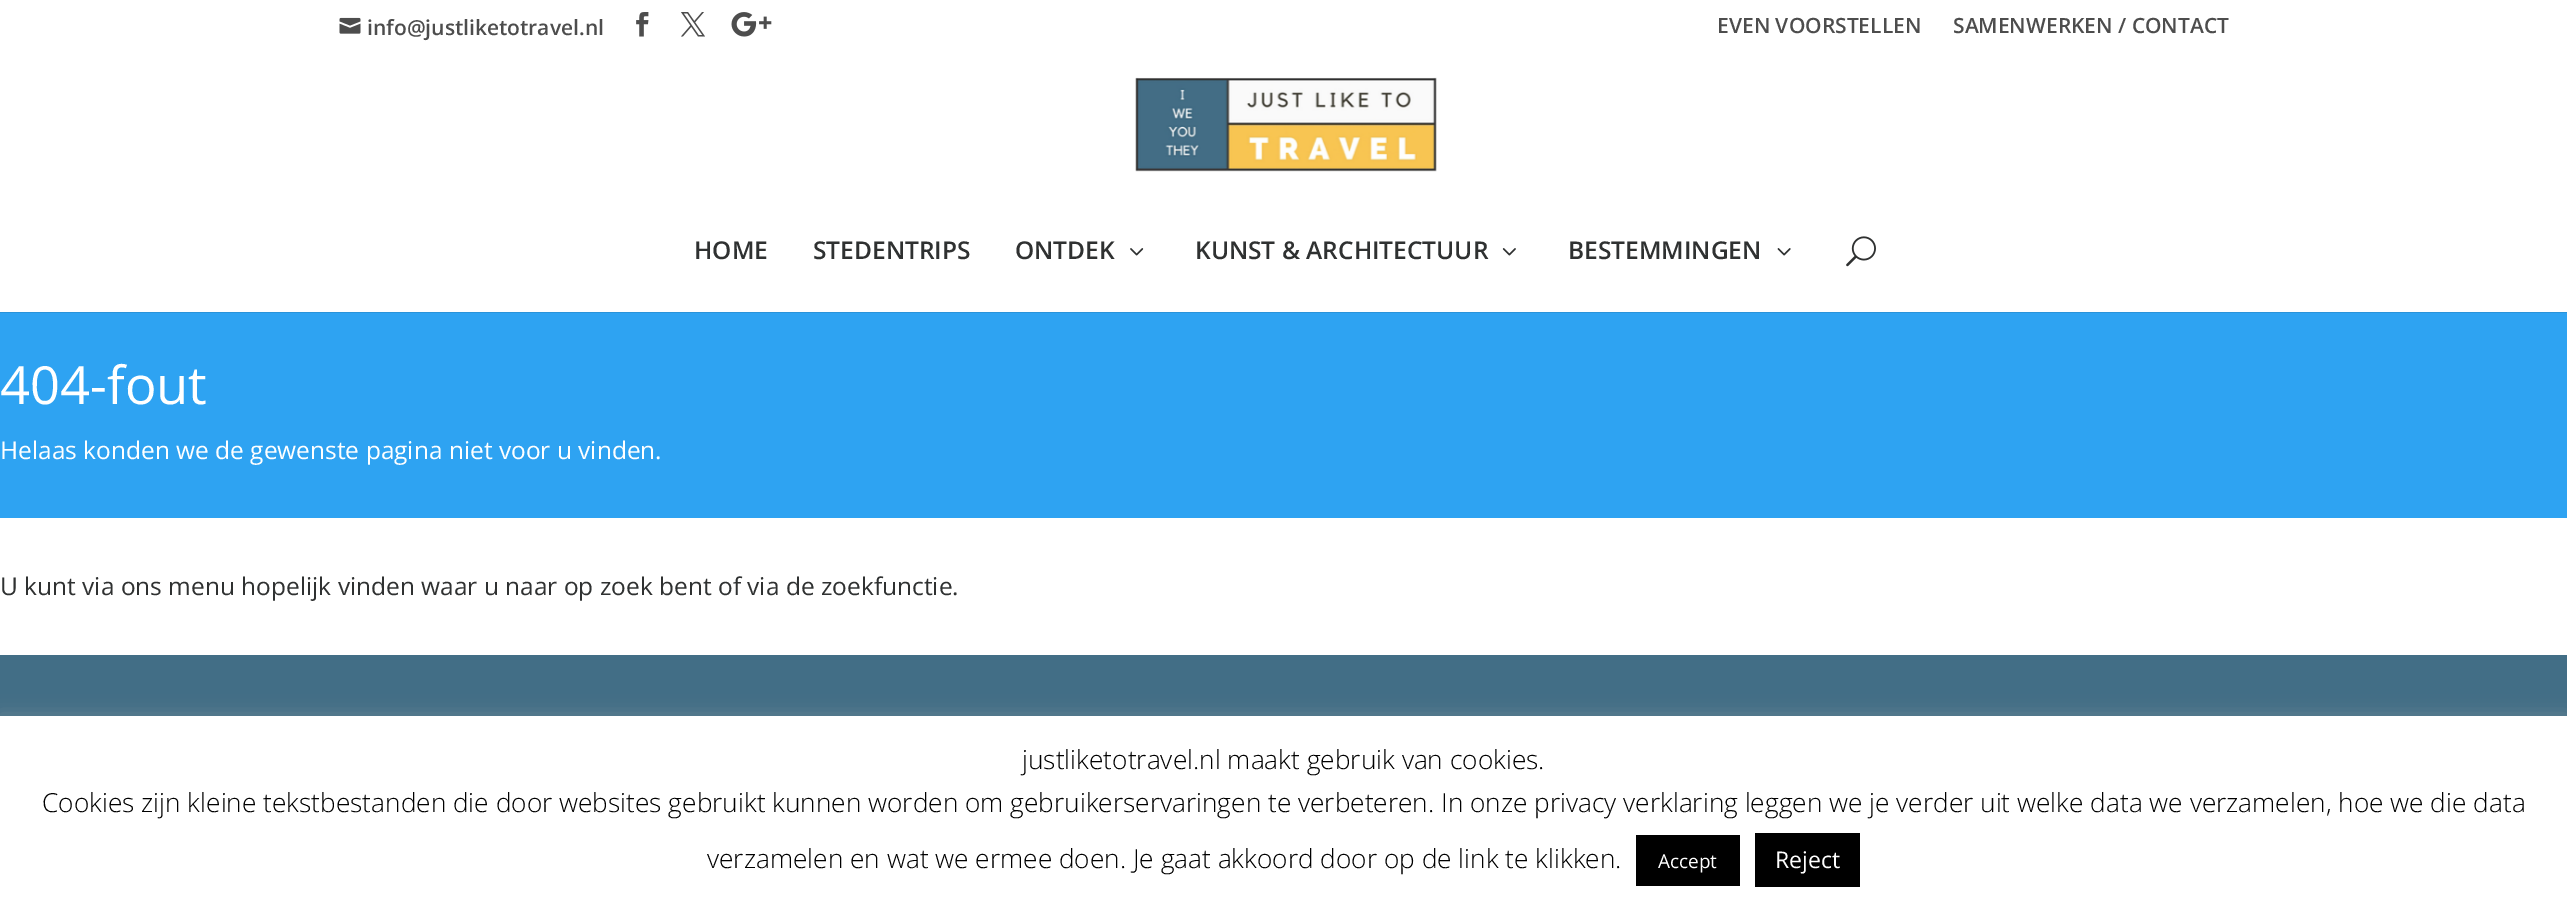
%!PS
<< /PageSize [2567 908] /PageUsesTransparency true >> setpagedevice
/C { dup -16 bitshift 255 div exch dup -8 bitshift 255 and 255 div exch 255 and 255 div setrgbcolor } def
/F { [ exch dup neg 0 0 3 -1 roll 0 0 ] selectfont } def
/T { moveto show } def
/R { rectfill } def
/A { dup .setfillconstantalpha .setstrokeconstantalpha } def
/Q { 5 dict begin { /r /h /w /y /x } { exch def } forall
  x r add y moveto x w add y 2 copy h add r arct x w add y h add x 1 index r arct
  x y h add x y r arct x y 2 copy exch w add exch r arct closepath end } def
/S { 12 dict begin { /a /b /q /h /w /y /x } { exch def } forall gsave /was 0 def
  9 -2 -9 { dup b mul 4 div /e exch def 1 sub .425 mul 2.718 exch exp 1 add a .99 .min exch div /now exch def
    1 1 now sub 1 was sub div sub A /was now def
    w h .min e 2 mul add 0 gt { x e sub y e sub w e 2 mul add h e 2 mul add
      q e add b .6 mul add w h .min 2 div e add .min 0 .max Q fill } if } for grestore end } def
/I { 5 dict begin { /h /w /y /x /name } { exch def } forall
  gsave x y translate w h scale
  w h 8 [w 0 0 h 0 0] name (r) file false 3 colorimage grestore end } def
0 .pushpdf14devicefilter
0 908 translate 1 -1 scale
4 setmiterlimit
16#FFFFFF C
0 0 2567 908 R
(1.rgb) 339 17 22 17 I
/OpenSans-SemiBold 21 F
16#4D4D4D C
(info@justliketotravel.nl) 367 35 T
(2.rgb) 636 12 13 25 I
(3.rgb) 681 12 24 25 I
(4.rgb) 731 12 41 25 I
(EVEN VOORSTELLEN) 1717 33 T
(SAMENWERKEN / CONTACT) 1953 33 T
16#2993DA C
0 312 2567 1 R
(5.rgb) 1135 77 302 95 I
/OpenSans-SemiBold 24.5 F
16#2F3131 C
(HOME) 694 259 T
(STEDENTRIPS) 813 259 T
(ONTDEK) 1015 259 T
(6.rgb) 1130 248 14 8 I
(KUNST & ARCHITECTUUR) 1195 259 T
(7.rgb) 1502 248 14 8 I
(BESTEMMINGEN) 1568 259 T
(8.rgb) 1777 248 14 8 I
(9.rgb) 1846 236 30 31 I
16#2EA3F2 C
0 313 2567 205 R
/OpenSans-Regular 52.5 F
16#FFFFFF C
(404-fout) 0 404 T
/OpenSans-Regular 24.5 F
(Helaas konden we de gewenste pagina niet voor u vinden.) 0 459 T
16#2F3131 C
(U kunt via ons menu hopelijk vinden waar u naar op zoek bent of via de zoekfunctie.) 0 595 T
16#426E86 C
0 655 2567 61 R
16#ACABAB C
0 714 2567 193 0 9 .3 S
16#FFFFFF C
0 716 2567 192 R
/OpenSans-Light 26.25 F
16#000000 C
(justliketotravel.nl maakt gebruik van cookies.) 1022 769 T
(Cookies zijn kleine tekstbestanden die door websites gebruikt kunnen worden om gebruikerservaringen te verbeteren. In onze privacy verklaring leggen we je verder uit welke data we verzamelen, hoe we die data) 42 812 T
(verzamelen en wat we ermee doen. Je gaat akkoord door op de link te klikken.) 707 868 T
1636 835 104 51 R
/OpenSans-Regular 19 F
16#FFFFFF C
(Accept) 1658 868 T
16#000000 C
1755 833 105 54 R
/OpenSans-Regular 23 F
16#FFFFFF C
(Reject) 1775 868 T
.poppdf14devicefilter showpage
